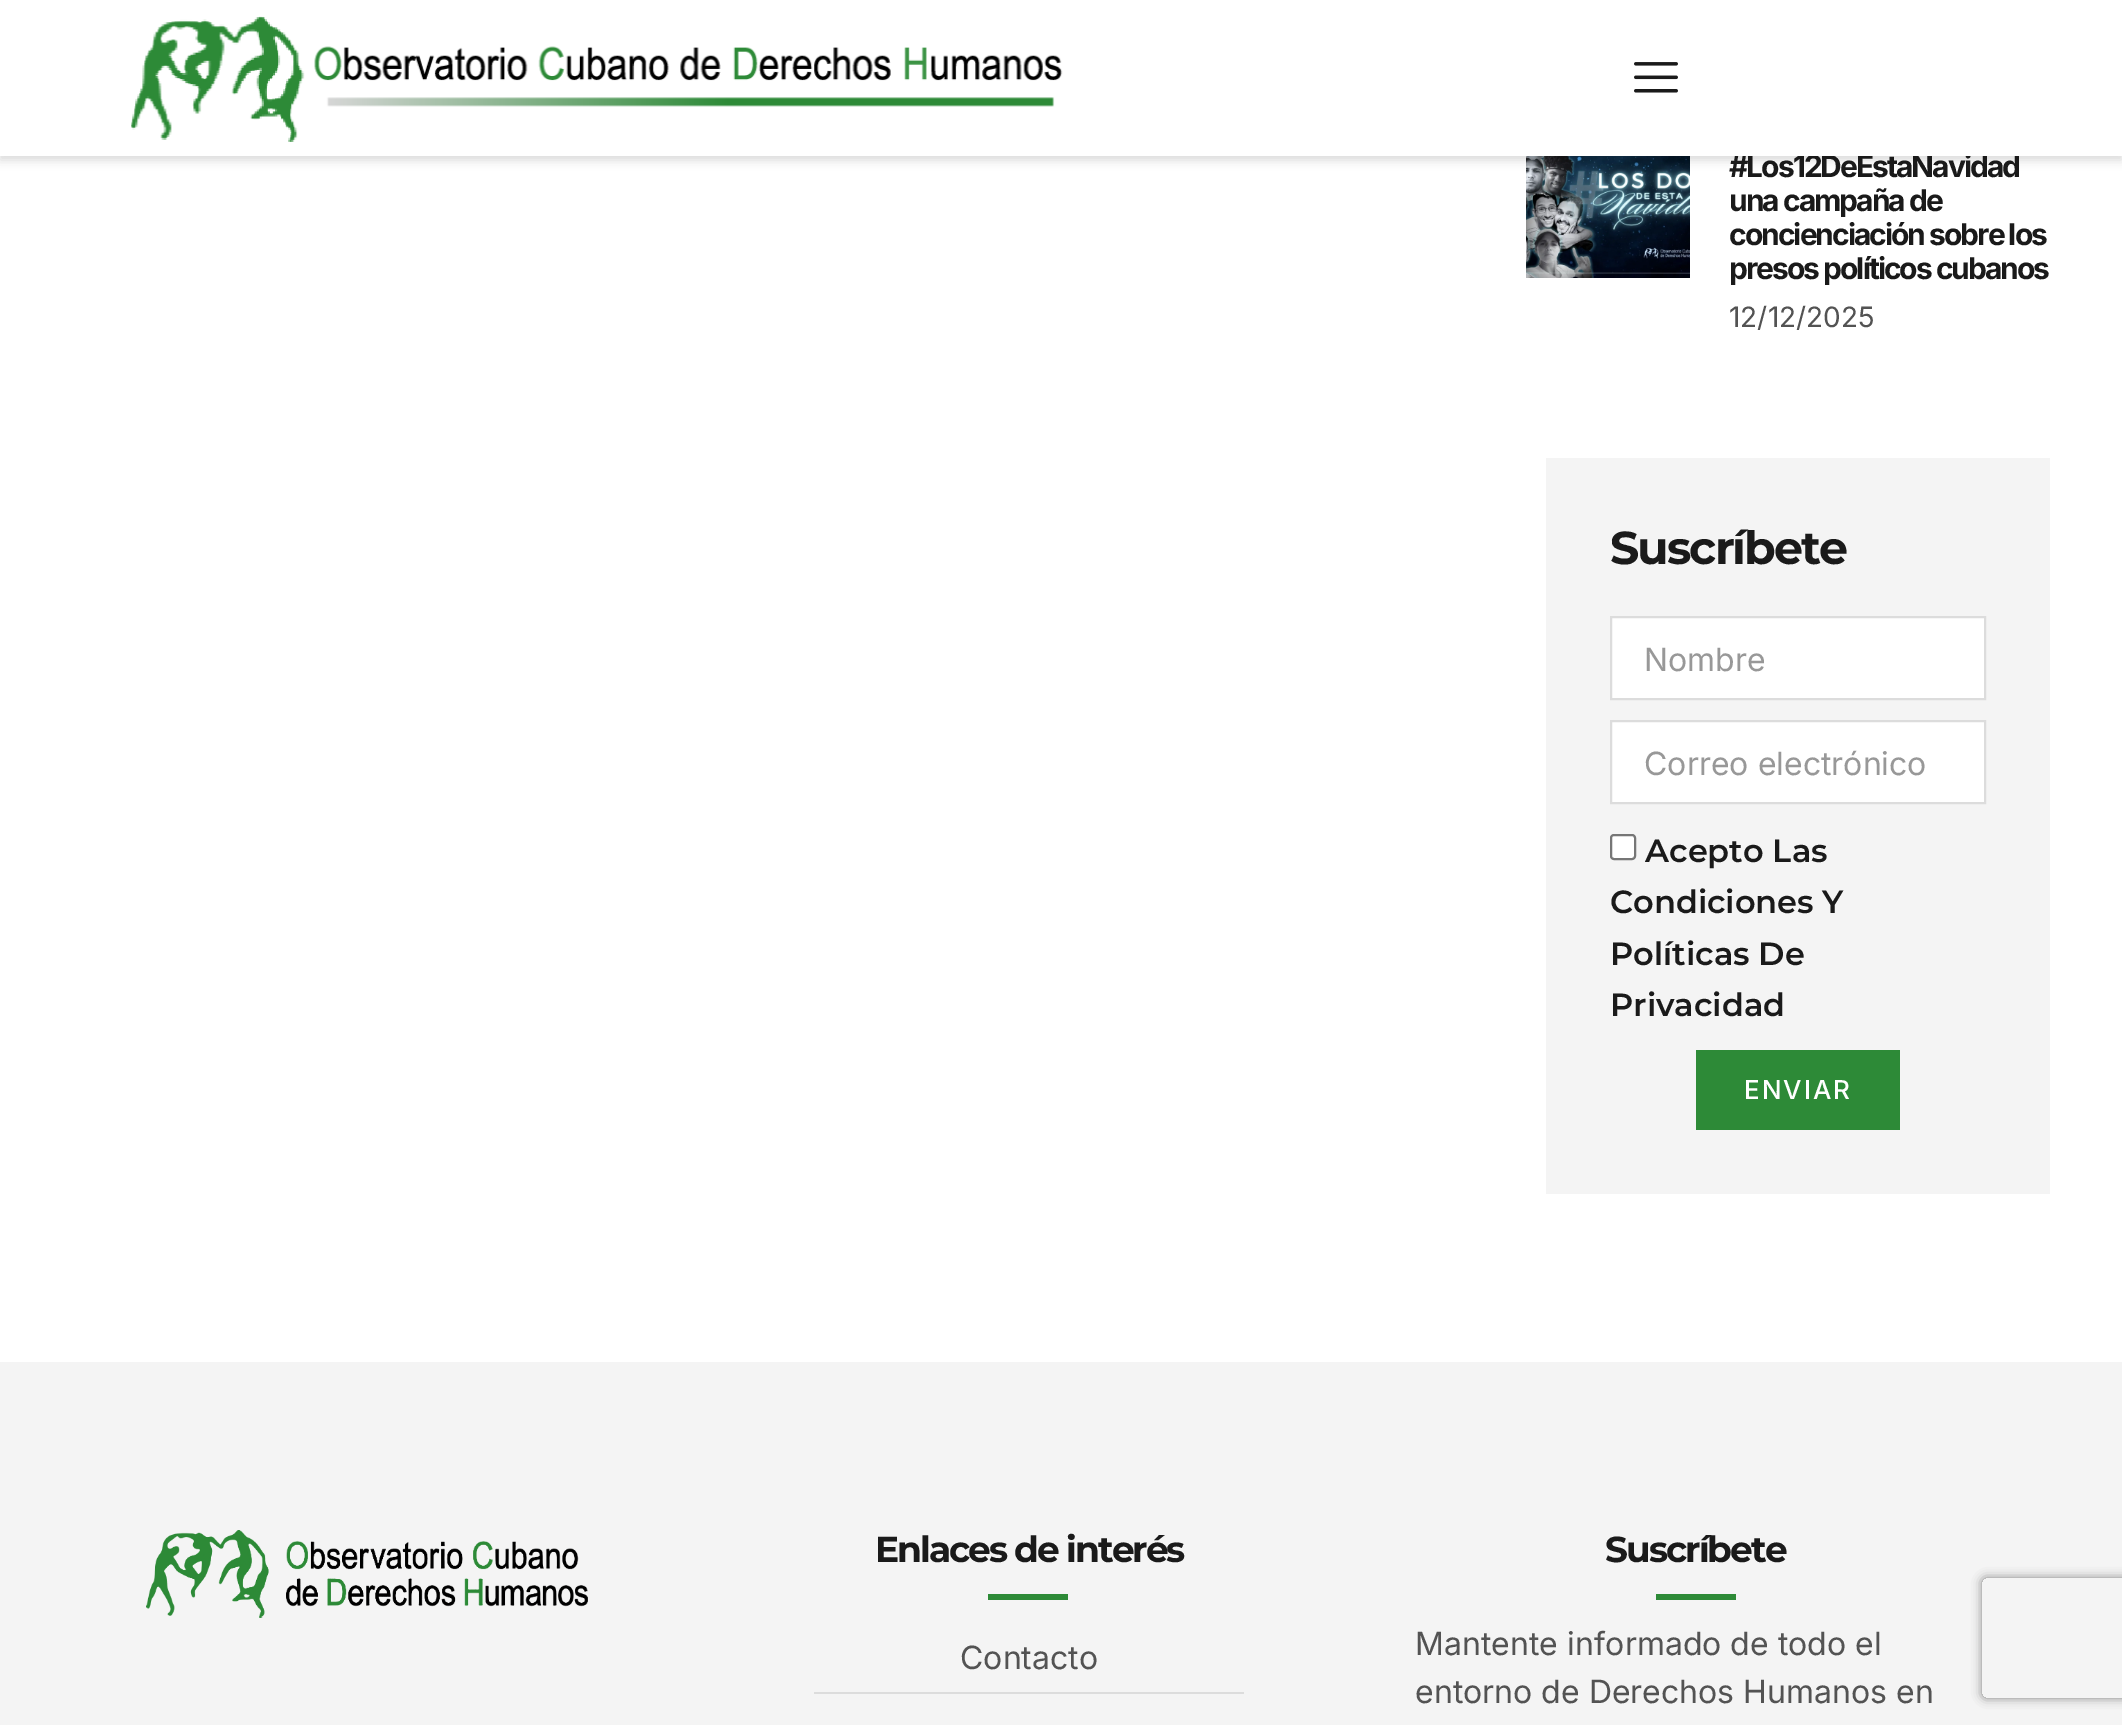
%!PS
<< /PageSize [2122 1725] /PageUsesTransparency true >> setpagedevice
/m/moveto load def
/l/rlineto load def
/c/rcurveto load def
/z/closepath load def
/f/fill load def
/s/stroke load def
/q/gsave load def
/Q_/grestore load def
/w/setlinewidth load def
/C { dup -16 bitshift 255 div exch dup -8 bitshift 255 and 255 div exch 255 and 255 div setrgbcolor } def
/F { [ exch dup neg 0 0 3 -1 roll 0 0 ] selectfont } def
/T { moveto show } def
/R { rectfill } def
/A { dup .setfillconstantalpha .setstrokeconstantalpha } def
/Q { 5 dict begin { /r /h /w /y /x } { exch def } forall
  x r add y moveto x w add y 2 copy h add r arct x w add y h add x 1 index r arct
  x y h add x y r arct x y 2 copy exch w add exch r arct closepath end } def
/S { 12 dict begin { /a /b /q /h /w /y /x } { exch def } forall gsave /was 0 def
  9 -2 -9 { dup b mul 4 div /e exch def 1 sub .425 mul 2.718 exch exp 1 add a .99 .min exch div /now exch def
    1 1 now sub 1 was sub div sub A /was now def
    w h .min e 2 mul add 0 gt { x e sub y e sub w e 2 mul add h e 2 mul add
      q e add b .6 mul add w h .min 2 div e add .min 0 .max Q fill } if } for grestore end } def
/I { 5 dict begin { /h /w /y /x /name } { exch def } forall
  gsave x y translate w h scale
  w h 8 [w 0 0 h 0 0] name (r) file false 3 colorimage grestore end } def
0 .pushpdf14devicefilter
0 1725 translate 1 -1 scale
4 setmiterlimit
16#FFFFFF C
0 0 2122 1725 R
(3.rgb) 1526 156 164 122 I
16#000000 C
0 4 2122 156 0 5 .15 S
/Inter-Bold 30 F
16#1A1A1A C
1729 177 m -2 0 (#Los12DeEstaNavidad) ashow
16#FFFFFF C
0 0 2122 156 R
(1.rgb) 131 16 932 126 I
(2.rgb) 1634 62 44 31 I
16#1A1A1A C
1729 211 m -2 0 (una campaña de) ashow
1729 245 m -2 0 (concienciación sobre los) ashow
1729 279 m -2 0 (presos políticos cubanos) ashow
/Inter-Regular 28 F
16#535353 C
(12/12/2025) 1729 327 T
16#F4F4F4 C
1546 458 504 736 R
/Montserrat-Bold 46 F
16#1A1A1A C
1610 564 m -2 0 (Suscríbete) ashow
16#FFFFFF C
1611 617 m 374 0 l 0 82 l -374 0 l z q f Q_
16#DCDCDC C
2 w
s
/Inter-Regular 32 F
16#989898 C
(Nombre) 1644 671 T
16#FFFFFF C
1611 721 m 374 0 l 0 82 l -374 0 l z q f Q_
16#DCDCDC C
s
16#989898 C
(Correo electrónico) 1644 775 T
16#FFFFFF C
1611 835 24 24 3 Q q f Q_
16#767676 C
s
/Montserrat-SemiBold 32 F
16#1A1A1A C
(Acepto Las) 1645 862 T
(Condiciones Y) 1610 913 T
(Políticas De) 1610 965 T
(Privacidad) 1610 1016 T
16#2D8A37 C
1696 1050 204 80 R
/Inter-Medium 26 F
16#FFFFFF C
1744 1099 m 2 0 (ENVIAR) ashow
16#F4F4F4 C
0 1362 2122 363 R
(4.rgb) 146 1530 442 88 I
/Montserrat-Bold 36 F
16#1A1A1A C
875 1562 m -2 0 (Enlaces de interés) ashow
16#2D8A37 C
988 1594 80 6 R
/Inter-Regular 32 F
16#535353 C
(Contacto) 960 1669 T
16#DCDCDC C
814 1692 430 2 R
/Montserrat-Bold 36 F
16#1A1A1A C
1605 1562 m -2 0 (Suscríbete) ashow
16#2D8A37 C
1656 1594 80 6 R
/Inter-Regular 32 F
16#535353 C
(Mantente informado de todo el) 1415 1655 T
(entorno de Derechos Humanos en) 1415 1703 T
q
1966 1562 m 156 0 l 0 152 l -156 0 l z 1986 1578 m 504 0 l 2 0 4 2 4 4 c 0 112 l 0 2 -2 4 -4 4 c -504 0 l -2 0 -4 -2 -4 -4 c 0 -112 l 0 -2 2 -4 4 -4 c z eoclip newpath
16#808080 C
1982 1578 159 120 4 5 1 S
Q_
.poppdf14devicefilter showpage
